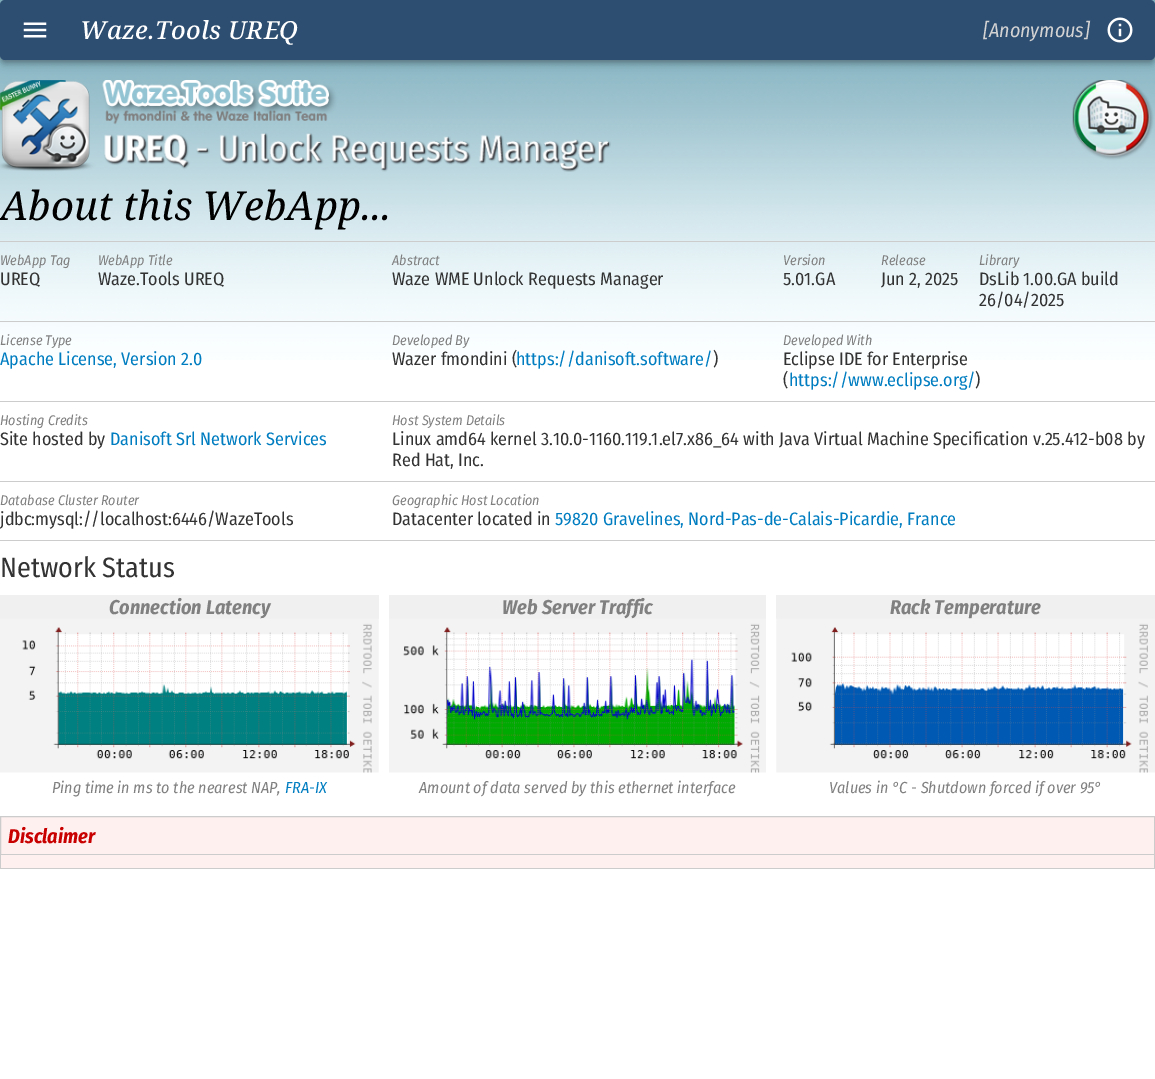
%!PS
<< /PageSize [1155 1079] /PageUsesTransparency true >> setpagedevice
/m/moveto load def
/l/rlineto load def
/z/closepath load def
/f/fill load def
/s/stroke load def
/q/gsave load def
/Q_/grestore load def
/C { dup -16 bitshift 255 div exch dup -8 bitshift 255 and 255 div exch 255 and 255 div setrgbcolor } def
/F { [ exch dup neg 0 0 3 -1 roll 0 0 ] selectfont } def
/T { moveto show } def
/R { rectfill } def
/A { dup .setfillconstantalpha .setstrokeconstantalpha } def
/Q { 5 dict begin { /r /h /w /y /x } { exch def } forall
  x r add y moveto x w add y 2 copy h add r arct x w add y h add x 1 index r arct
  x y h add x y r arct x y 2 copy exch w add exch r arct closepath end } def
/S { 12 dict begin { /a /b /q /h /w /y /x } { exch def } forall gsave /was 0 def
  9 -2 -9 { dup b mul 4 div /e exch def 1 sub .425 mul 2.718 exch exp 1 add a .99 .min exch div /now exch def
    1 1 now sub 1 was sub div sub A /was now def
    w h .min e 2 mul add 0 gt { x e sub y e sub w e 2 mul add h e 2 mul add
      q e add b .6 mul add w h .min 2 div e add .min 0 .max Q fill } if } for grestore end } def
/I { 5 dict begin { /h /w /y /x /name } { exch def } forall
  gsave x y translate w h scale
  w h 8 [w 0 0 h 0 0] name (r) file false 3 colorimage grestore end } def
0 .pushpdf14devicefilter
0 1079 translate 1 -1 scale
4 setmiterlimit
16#FFFFFF C
0 0 1155 1079 R
(1.rgb) 0 0 1155 360 I
16#000000 C
0 1 1155 60 5 6 .12 S
0 5 1155 60 5 3 .14 S
1 4 1153 57 4 2.5 .2 S
16#2D4D71 C
0 0 1155 60 5 Q f
(2.rgb) 23 22 24 16 I
/NotoSerif-MediumItalic 25 F
16#FFFFFF C
80 39 m .25 0 (Waze.Tools UREQ) ashow
/FiraSansCondensed-Italic 20 F
16#D3D3D3 C
([Anonymous]) 983 37 T
(3.rgb) 1107 17 26 26 I
(4.rgb) 0 80 1154 92 I
/NotoSerif-Italic 40 F
16#000000 C
(About this WebApp...) 0 220 T
16#CCCCCC C
0 241 1155 1 R
0 321 1155 1 R
/FiraSansCondensed-Italic 14 F
16#808080 C
(WebApp Tag) 0 265 T
/FiraSansCondensed-Regular 18 F
16#333333 C
(UREQ) 0 285 T
/FiraSansCondensed-Italic 14 F
16#808080 C
(WebApp Title) 98 265 T
/FiraSansCondensed-Regular 18 F
16#333333 C
(Waze.Tools UREQ) 98 285 T
/FiraSansCondensed-Italic 14 F
16#808080 C
(Abstract) 392 265 T
/FiraSansCondensed-Regular 18 F
16#333333 C
(Waze WME Unlock Requests Manager) 392 285 T
/FiraSansCondensed-Italic 14 F
16#808080 C
(Version) 783 265 T
/FiraSansCondensed-Regular 18 F
16#333333 C
(5.01.GA) 783 285 T
/FiraSansCondensed-Italic 14 F
16#808080 C
(Release) 881 265 T
/FiraSansCondensed-Regular 18 F
16#333333 C
(Jun 2, 2025) 881 285 T
/FiraSansCondensed-Italic 14 F
16#808080 C
(Library) 979 265 T
/FiraSansCondensed-Regular 18 F
16#333333 C
(DsLib 1.00.GA build) 979 285 T
(26/04/2025) 979 306 T
16#CCCCCC C
0 401 1155 1 R
/FiraSansCondensed-Italic 14 F
16#808080 C
(License Type) 0 345 T
/FiraSansCondensed-Regular 18 F
16#007DC1 C
(Apache License, Version 2.0) 0 365 T
/FiraSansCondensed-Italic 14 F
16#808080 C
(Developed By) 392 345 T
/FiraSansCondensed-Regular 18 F
16#333333 C
(Wazer fmondini \() 392 365 T
16#007DC1 C
(https://danisoft.software/) 516 365 T
16#333333 C
(\)) 713 365 T
/FiraSansCondensed-Italic 14 F
16#808080 C
(Developed With) 783 345 T
/FiraSansCondensed-Regular 18 F
16#333333 C
(Eclipse IDE for Enterprise) 783 365 T
(\() 783 386 T
16#007DC1 C
(https://www.eclipse.org/) 789 386 T
16#333333 C
(\)) 975 386 T
16#CCCCCC C
0 481 1155 1 R
/FiraSansCondensed-Italic 14 F
16#808080 C
(Hosting Credits) 0 425 T
/FiraSansCondensed-Regular 18 F
16#333333 C
(Site hosted by) 0 445 T
16#007DC1 C
(Danisoft Srl Network Services) 110 445 T
/FiraSansCondensed-Italic 14 F
16#808080 C
(Host System Details) 392 425 T
/FiraSansCondensed-Regular 18 F
16#333333 C
(Linux amd64 kernel 3.10.0-1160.119.1.el7.x86_64 with Java Virtual Machine Specification v.25.412-b08 by) 392 445 T
(Red Hat, Inc.) 392 466 T
16#CCCCCC C
0 540 1155 1 R
/FiraSansCondensed-Italic 14 F
16#808080 C
(Database Cluster Router) 0 505 T
/FiraSansCondensed-Regular 18 F
16#333333 C
(jdbc:mysql://localhost:6446/WazeTools) 0 525 T
/FiraSansCondensed-Italic 14 F
16#808080 C
(Geographic Host Location) 392 505 T
/FiraSansCondensed-Regular 18 F
16#333333 C
(Datacenter located in) 392 525 T
16#007DC1 C
(59820 Gravelines, Nord-Pas-de-Calais-Picardie, France) 555 525 T
/FiraSansCondensed-Regular 28 F
16#333333 C
(Network Status) 0 577 T
16#F0F0F0 C
0 595 379 24 R
/FiraSansCondensed-BoldItalic 20 F
16#808080 C
(Connection Latency) 109 614 T
(5.rgb) 0 618 379 155 I
/FiraSansCondensed-Italic 16 F
(Ping time in ms to the nearest NAP,) 52 793 T
16#007DC1 C
(FRA-IX) 285 793 T
16#F0F0F0 C
389 595 377 24 R
/FiraSansCondensed-BoldItalic 20 F
16#808080 C
(Web Server Traffic) 502 614 T
(6.rgb) 389 618 377 155 I
/FiraSansCondensed-Italic 16 F
(Amount of data served by this ethernet interface) 419 793 T
16#F0F0F0 C
776 595 379 24 R
/FiraSansCondensed-BoldItalic 20 F
16#808080 C
(Rack Temperature) 890 614 T
(7.rgb) 776 618 379 155 I
/FiraSansCondensed-Italic 16 F
(Values in °C - Shutdown forced if over 95°) 829 793 T
16#FFF0F0 C
.5 816.5 m 1154 0 l 0 38 l -1154 0 l z q f Q_
16#CCCCCC C
s
/FiraSansCondensed-BoldItalic 20 F
16#C80000 C
(Disclaimer) 8 843 T
16#FFF0F0 C
1 855 1153 13 R
16#CCCCCC C
1154 855 1 14 R
0 868 1155 1 R
0 855 1 14 R
.poppdf14devicefilter showpage
